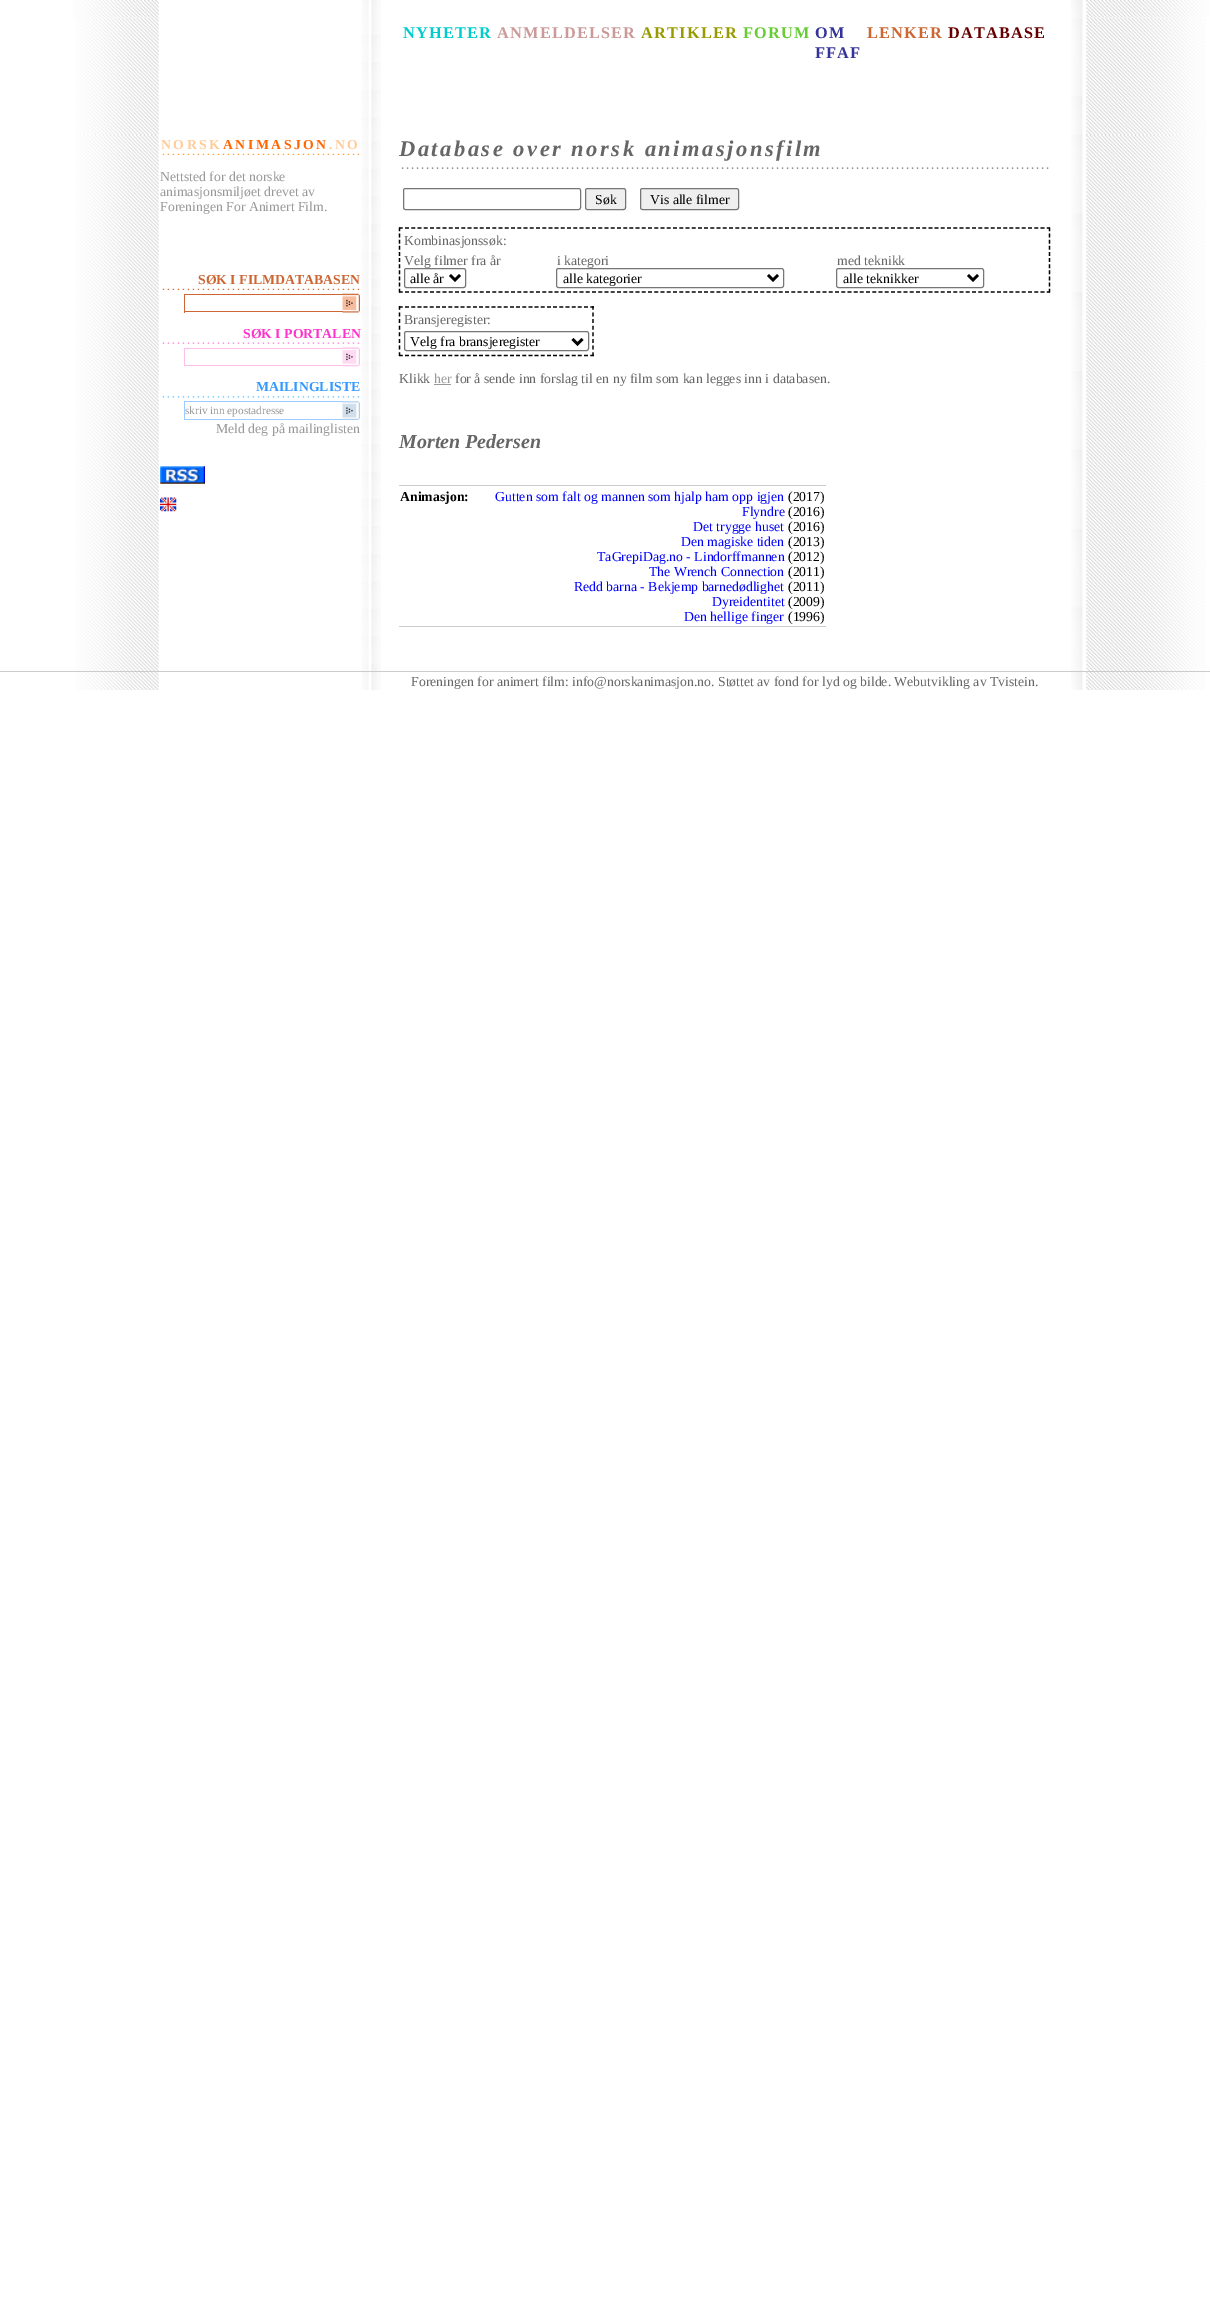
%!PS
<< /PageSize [1210 2301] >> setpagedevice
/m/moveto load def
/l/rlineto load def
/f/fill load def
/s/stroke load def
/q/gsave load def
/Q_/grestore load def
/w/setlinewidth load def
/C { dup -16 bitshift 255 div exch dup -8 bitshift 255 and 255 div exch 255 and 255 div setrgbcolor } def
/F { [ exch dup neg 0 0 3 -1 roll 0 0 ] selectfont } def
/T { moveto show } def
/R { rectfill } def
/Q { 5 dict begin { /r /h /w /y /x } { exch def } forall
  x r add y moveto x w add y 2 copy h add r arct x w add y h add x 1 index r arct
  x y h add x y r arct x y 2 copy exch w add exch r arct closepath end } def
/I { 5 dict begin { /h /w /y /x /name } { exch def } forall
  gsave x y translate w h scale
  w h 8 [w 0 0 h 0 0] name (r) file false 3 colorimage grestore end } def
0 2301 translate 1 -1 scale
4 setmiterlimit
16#FFFFFF C
0 0 1210 2301 R
(1.rgb) 73 0 86 18 I
(2.rgb) 362 0 19 18 I
(3.rgb) 1071 0 138 18 I
(4.rgb) 75 17 84 118 I
(5.rgb) 361 17 20 118 I
/LiberationSerif-Bold 16.25 F
16#00CCCC C
403 38 m 1.25 0 (NYHETER) ashow
16#CC9999 C
497 38 m 1.25 0 (ANMELDELSER) ashow
16#999900 C
641 38 m 1.25 0 (ARTIKLER) ashow
16#66CC33 C
743 38 m 1.25 0 (FORUM) ashow
16#333399 C
815 38 m 1.25 0 (OM) ashow
815 58 m 1.25 0 (FFAF) ashow
16#CC6633 C
867 38 m 1.25 0 (LENKER) ashow
16#660000 C
948 38 m 1.25 0 (DATABASE) ashow
(6.rgb) 1071 17 135 118 I
(7.rgb) 75 135 84 536 I
(8.rgb) 361 135 20 536 I
(9.rgb) 162 153 198 2 I
/LiberationSerif-Bold 13.75 F
16#FFCC99 C
161 149 m 2.5 0 (NORSK) ashow
16#FF6600 C
223 149 m 2.5 0 (ANIMASJON) ashow
16#FFCC99 C
329 149 m 2.5 0 (.NO) ashow
/LiberationSerif-Regular 13.75 F
16#999999 C
(Nettsted for det norske) 160 181 T
(animasjonsmiljøet drevet av) 160 196 T
(Foreningen For Animert Film.) 160 211 T
(10.rgb) 162 288 198 2 I
/LiberationSerif-Bold 13.75 F
16#CC6633 C
(SØK I FILMDATABASEN) 198 284 T
184 294 159 1 R
184 311 159 1 R
184 294 1 19 R
(11.rgb) 342 293 18 20 I
(12.rgb) 162 342 198 2 I
16#FF33CC C
(SØK I PORTALEN) 243 338 T
16#FFBDE9 C
184 348 159 1 R
184 365 159 1 R
184 348 1 18 R
(13.rgb) 342 347 18 20 I
(14.rgb) 162 396 198 2 I
16#3399FF C
(MAILINGLISTE) 256 391 T
16#99CCFF C
184 401 159 1 R
184 419 159 1 R
184 401 1 19 R
/LiberationSerif-Regular 11.25 F
16#999999 C
(skriv inn epostadresse) 185 414 T
(15.rgb) 342 401 18 19 I
/LiberationSerif-Regular 13.75 F
(Meld deg på mailinglisten) 216 433 T
(16.rgb) 160 466 45 18 I
(17.rgb) 160 497 17 15 I
(18.rgb) 398 167 651 2 I
/LiberationSerif-BoldItalic 22.5 F
16#666666 C
399 156 m 2.5 0 (Database over norsk animasjonsfilm) ashow
16#767676 C
403.5 188.5 177 21 2 Q s
16#EFEFEF C
585.5 188.5 40 21 2 Q q f Q_
16#767676 C
s
/LiberationSerif-Regular 13.75 F
16#000000 C
(Søk) 595 204 T
16#EFEFEF C
640.5 188.5 98 21 2 Q q f Q_
16#767676 C
s
16#000000 C
(Vis alle filmer) 650 204 T
1.2 w
[3.75 2.48] 0 setdash
399 228 m 651 0 l s
[3.75 2.38] 0 setdash
1049.5 227.5 m 0 65 l s
[3.75 2.48] 0 setdash
399 292 m 651 0 l s
[3.75 2.38] 0 setdash
399.5 227.5 m 0 65 l s
16#666666 C
(Kombinasjonssøk:) 404 245 T
(Velg filmer fra år) 404 265 T
16#767676 C
1 w
[] 0 setdash
404.5 268.5 61 19 2 Q s
16#000000 C
2.5 w
450 275 m 5 5 l 5 -5 l s
(alle år) 410 283 T
16#666666 C
(i kategori) 557 265 T
16#767676 C
1 w
556.5 268.5 227 19 2 Q s
16#000000 C
2.5 w
768 275 m 5 5 l 5 -5 l s
(alle kategorier) 563 283 T
16#666666 C
(med teknikk) 837 265 T
16#767676 C
1 w
836.5 268.5 147 19 2 Q s
16#000000 C
2.5 w
968 275 m 5 5 l 5 -5 l s
(alle teknikker) 843 283 T
1.2 w
[3.75 2.42] 0 setdash
399 307 m 195 0 l s
[3.75 2.86] 0 setdash
593 306 m 0 50 l s
[3.75 2.42] 0 setdash
399 355.5 m 195 0 l s
[3.75 2.86] 0 setdash
399.5 306 m 0 50 l s
16#666666 C
(Bransjeregister:) 404 324 T
16#767676 C
1 w
[] 0 setdash
404.5 331.5 184 19 2 Q s
16#000000 C
2.5 w
572.5 339 m 5 5 l 5 -5 l s
(Velg fra bransjeregister) 410 346 T
16#666666 C
(Klikk) 399 383 T
16#999999 C
(her) 434 383 T
434 384 17 1 R
16#666666 C
(for å sende inn forslag til en ny film som kan legges inn i databasen.) 455 383 T
/LiberationSerif-BoldItalic 20 F
(Morten Pedersen) 399 448 T
/LiberationSerif-Bold 13.75 F
16#000000 C
(Animasjon:) 400 501 T
16#CCCCCC C
399 485 427 1 R
399 626 427 1 R
/LiberationSerif-Regular 13.75 F
16#0000FF C
(Gutten som falt og mannen som hjalp ham opp igjen) 495 501 T
16#000000 C
(\(2017\)) 788 501 T
16#0000FF C
(Flyndre) 742 516 T
16#000000 C
(\(2016\)) 788 516 T
16#0000FF C
(Det trygge huset) 693 531 T
16#000000 C
(\(2016\)) 788 531 T
16#0000FF C
(Den magiske tiden) 681 546 T
16#000000 C
(\(2013\)) 788 546 T
16#0000FF C
(TaGrepiDag.no - Lindorffmannen) 597 561 T
16#000000 C
(\(2012\)) 788 561 T
16#0000FF C
(The Wrench Connection) 649 576 T
16#000000 C
(\(2011\)) 788 576 T
16#0000FF C
(Redd barna - Bekjemp barnedødlighet) 574 591 T
16#000000 C
(\(2011\)) 788 591 T
16#0000FF C
(Dyreidentitet) 712 606 T
16#000000 C
(\(2009\)) 788 606 T
16#0000FF C
(Den hellige finger) 684 621 T
16#000000 C
(\(1996\)) 788 621 T
(19.rgb) 1071 135 135 536 I
(20.rgb) 1071 672 135 18 I
16#CCCCCC C
0 671 1210 1 R
(21.rgb) 75 672 84 18 I
(22.rgb) 362 672 19 18 I
16#666666 C
(Foreningen for animert film: info@norskanimasjon.no. Støttet av fond for lyd og bilde. Webutvikling av Tvistein.) 411 686 T
showpage
